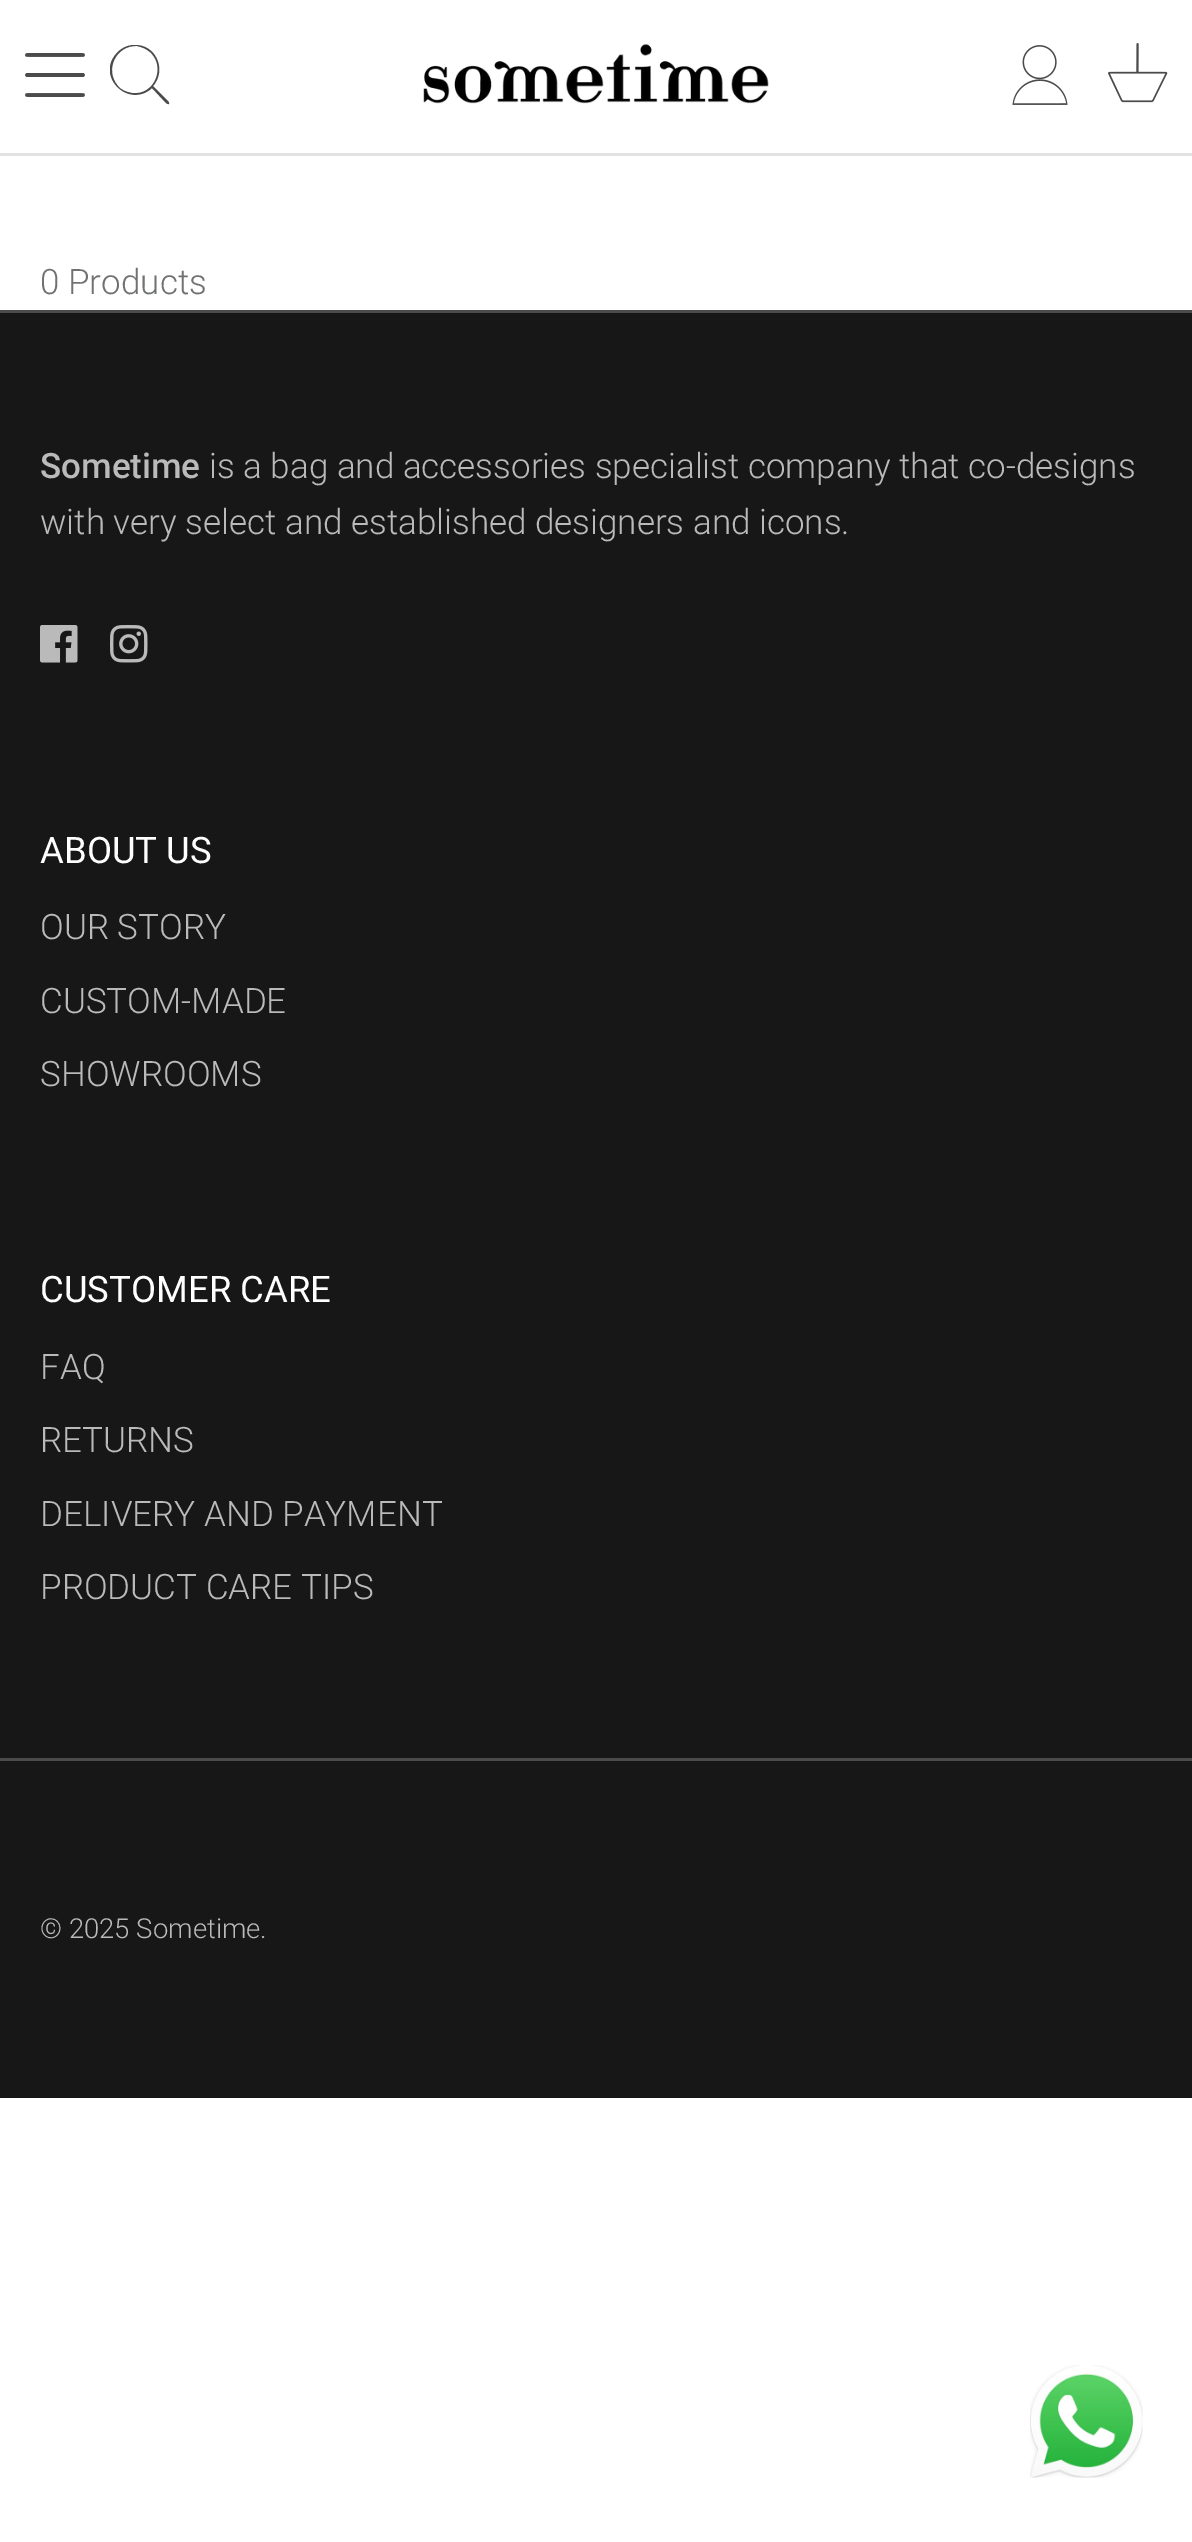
%!PS
<< /PageSize [1192 2542] >> setpagedevice
/m/moveto load def
/l/rlineto load def
/c/rcurveto load def
/z/closepath load def
/f/fill load def
/q/gsave load def
/Q_/grestore load def
/C { dup -16 bitshift 255 div exch dup -8 bitshift 255 and 255 div exch 255 and 255 div setrgbcolor } def
/F { [ exch dup neg 0 0 3 -1 roll 0 0 ] selectfont } def
/T { moveto show } def
/R { rectfill } def
/I { 5 dict begin { /h /w /y /x /name } { exch def } forall
  gsave x y translate w h scale
  w h 8 [w 0 0 h 0 0] name (r) file false 3 colorimage grestore end } def
0 2542 translate 1 -1 scale
4 setmiterlimit
16#FFFFFF C
0 0 1192 2542 R
16#E2E2E2 C
0 153 1192 3 R
(1.rgb) 25 53 60 44 I
q
110 45 60 60 rectclip
16#4B4B4B C
134 45 m -7 0 -14 4 -18 9 c -20 23 13 55 36 34 c 14 15 l 3 2 4 1 2 -2 c -15 -15 l 14 -16 3 -42 -19 -41 c z 137 46 m 5 1 10 3 14 7 c 15 15 3 43 -19 40 c -6 -1 -11 -3 -14 -7 c -14 -16 -2 -41 19 -40 c z f
Q_
(2.rgb) 423 44 346 60 I
(3.rgb) 1012 45 56 60 I
(4.rgb) 1108 43 60 60 I
/Roboto-Light 35 F
16#707173 C
(0 Products) 40 294 T
16#171717 C
0 313 1192 1785 R
16#4B4B4B C
0 310 1192 3 R
/Roboto-Medium 35 F
16#BABABA C
(Sometime) 40 478 T
/Roboto-Light 35 F
(is a bag and accessories specialist company that co-designs) 209 478 T
(with very select and established designers and icons.) 40 534 T
(5.rgb) 40 625 38 38 I
(6.rgb) 110 625 38 38 I
/Roboto-Regular 36.5 F
16#FFFFFF C
(ABOUT US) 40 863 T
/Roboto-Light 35 F
16#BABABA C
(OUR STORY) 40 939 T
(CUSTOM-MADE) 40 1013 T
(SHOWROOMS) 40 1086 T
/Roboto-Regular 36.5 F
16#FFFFFF C
(CUSTOMER CARE) 40 1302 T
/Roboto-Light 35 F
16#BABABA C
(FAQ) 40 1379 T
(RETURNS) 40 1452 T
(DELIVERY AND PAYMENT) 40 1526 T
(PRODUCT CARE TIPS) 40 1599 T
16#4B4B4B C
0 1758 1192 3 R
/Roboto-Light 27.5 F
16#BABABA C
(© 2025 Sometime.) 40 1938 T
(7.rgb) 1030 2365 113 113 I
showpage
